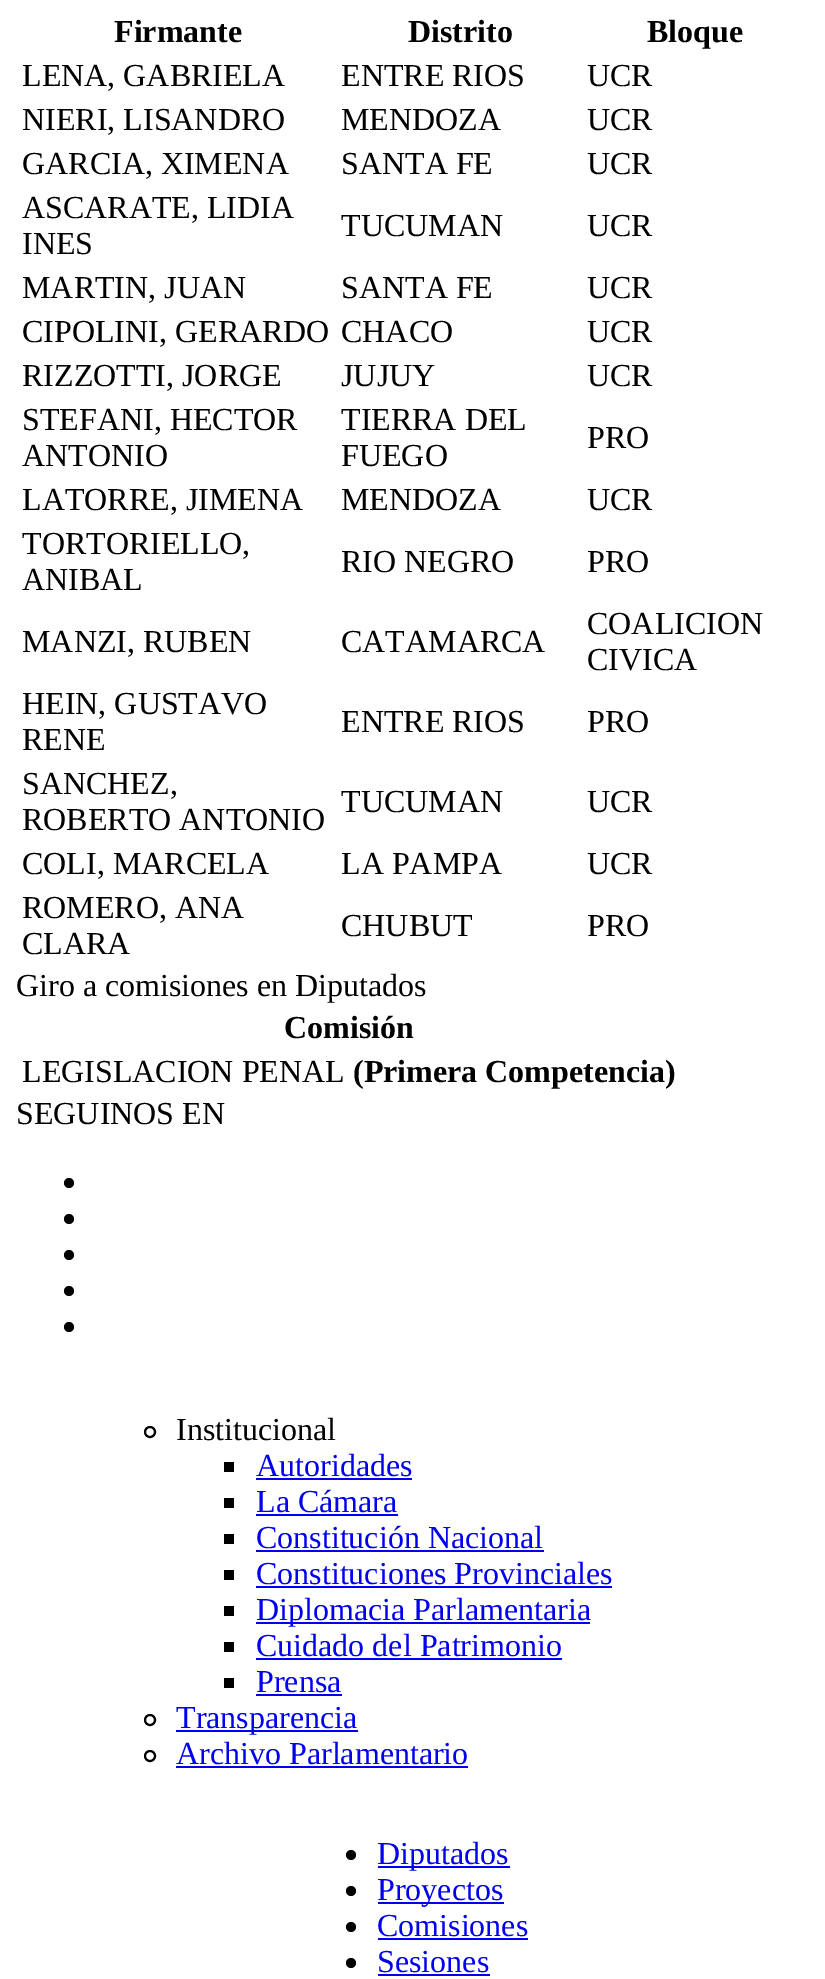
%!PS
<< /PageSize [825 1979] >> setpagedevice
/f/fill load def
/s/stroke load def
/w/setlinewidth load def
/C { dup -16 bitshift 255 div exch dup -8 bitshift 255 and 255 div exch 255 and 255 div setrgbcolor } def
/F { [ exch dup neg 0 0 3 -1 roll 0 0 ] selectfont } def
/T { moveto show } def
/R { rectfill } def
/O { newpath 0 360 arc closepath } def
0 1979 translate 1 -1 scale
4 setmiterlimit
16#FFFFFF C
0 0 825 1979 R
/LiberationSerif-Bold 32 F
16#000000 C
(Firmante) 114 42 T
(Distrito) 408 42 T
(Bloque) 647 42 T
/LiberationSerif-Regular 32 F
(LENA, GABRIELA) 22 86 T
(ENTRE RIOS) 341 86 T
(UCR) 587 86 T
(NIERI, LISANDRO) 22 130 T
(MENDOZA) 341 130 T
(UCR) 587 130 T
(GARCIA, XIMENA) 22 174 T
(SANTA FE) 341 174 T
(UCR) 587 174 T
(ASCARATE, LIDIA) 22 218 T
(INES) 22 254 T
(TUCUMAN) 341 236 T
(UCR) 587 236 T
(MARTIN, JUAN) 22 298 T
(SANTA FE) 341 298 T
(UCR) 587 298 T
(CIPOLINI, GERARDO) 22 342 T
(CHACO) 341 342 T
(UCR) 587 342 T
(RIZZOTTI, JORGE) 22 386 T
(JUJUY) 341 386 T
(UCR) 587 386 T
(STEFANI, HECTOR) 22 430 T
(ANTONIO) 22 466 T
(TIERRA DEL) 341 430 T
(FUEGO) 341 466 T
(PRO) 587 448 T
(LATORRE, JIMENA) 22 510 T
(MENDOZA) 341 510 T
(UCR) 587 510 T
(TORTORIELLO,) 22 554 T
(ANIBAL) 22 590 T
(RIO NEGRO) 341 572 T
(PRO) 587 572 T
(MANZI, RUBEN) 22 652 T
(CATAMARCA) 341 652 T
(COALICION) 587 634 T
(CIVICA) 587 670 T
(HEIN, GUSTAVO) 22 714 T
(RENE) 22 750 T
(ENTRE RIOS) 341 732 T
(PRO) 587 732 T
(SANCHEZ,) 22 794 T
(ROBERTO ANTONIO) 22 830 T
(TUCUMAN) 341 812 T
(UCR) 587 812 T
(COLI, MARCELA) 22 874 T
(LA PAMPA) 341 874 T
(UCR) 587 874 T
(ROMERO, ANA) 22 918 T
(CLARA) 22 954 T
(CHUBUT) 341 936 T
(PRO) 587 936 T
(Giro a comisiones en Diputados) 16 996 T
/LiberationSerif-Bold 32 F
(Comisión) 284 1038 T
/LiberationSerif-Regular 32 F
(LEGISLACION PENAL) 22 1082 T
/LiberationSerif-Bold 32 F
(\(Primera Competencia\)) 353 1082 T
/LiberationSerif-Regular 32 F
(SEGUINOS EN) 16 1124 T
69 1183 5 O f
69 1219 5 O f
69 1255 5 O f
69 1291 5 O f
69 1327 5 O f
2 w
150 1432 5 O s
(Institucional) 176 1440 T
224 1462 10 10 R
16#0000EE C
(Autoridades) 256 1476 T
256 1478 156 2 R
16#000000 C
224 1498 10 10 R
16#0000EE C
(La Cámara) 256 1512 T
256 1514 142 2 R
16#000000 C
224 1534 10 10 R
16#0000EE C
(Constitución Nacional) 256 1548 T
256 1550 288 2 R
16#000000 C
224 1570 10 10 R
16#0000EE C
(Constituciones Provinciales) 256 1584 T
256 1586 356 2 R
16#000000 C
224 1606 10 10 R
16#0000EE C
256 1622 334 2 R
(Diplomacia Parlamentaria) 256 1620 T
16#000000 C
224 1642 10 10 R
16#0000EE C
(Cuidado del Patrimonio) 256 1656 T
256 1658 306 2 R
16#000000 C
224 1678 10 10 R
16#0000EE C
(Prensa) 256 1692 T
256 1694 86 2 R
16#000000 C
150 1720 5 O s
16#0000EE C
176 1730 182 2 R
(Transparencia) 176 1728 T
16#000000 C
150 1756 5 O s
16#0000EE C
(Archivo Parlamentario) 176 1764 T
176 1766 292 2 R
16#000000 C
351 1855 5 O f
16#0000EE C
378 1866 132 2 R
(Diputados) 377 1864 T
16#000000 C
351 1891 5 O f
16#0000EE C
378 1902 126 2 R
(Proyectos) 377 1900 T
16#000000 C
351 1927 5 O f
16#0000EE C
(Comisiones) 377 1936 T
378 1938 150 2 R
16#000000 C
351 1963 5 O f
16#0000EE C
(Sesiones) 377 1972 T
378 1974 112 2 R
showpage
